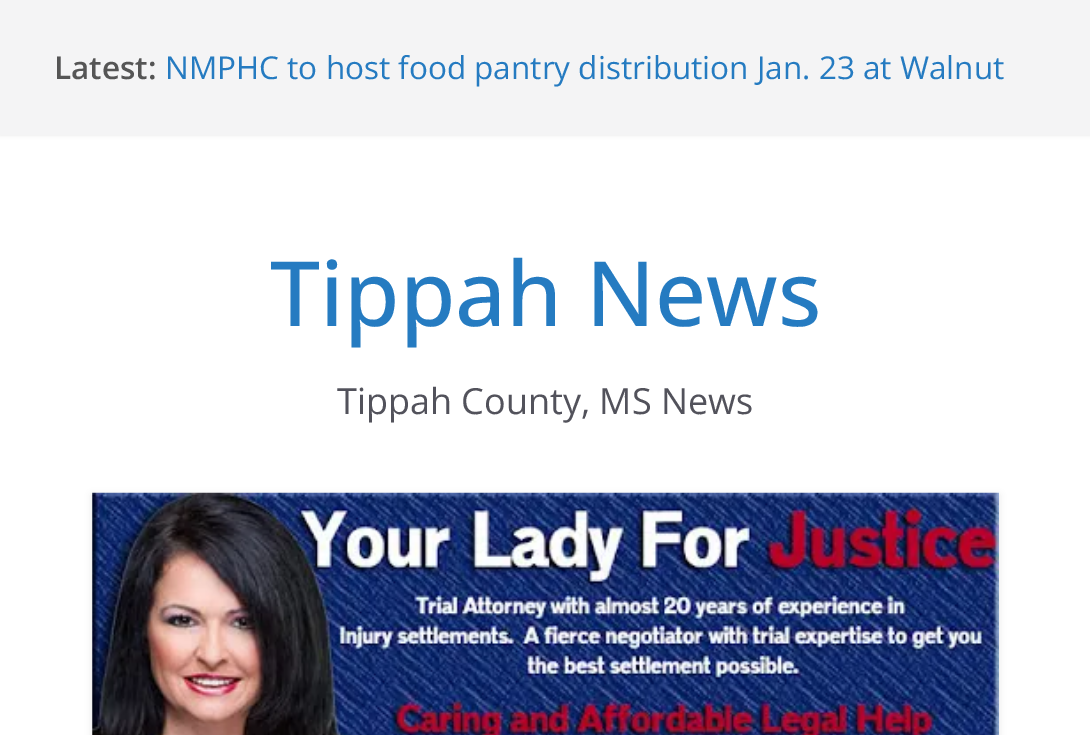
%!PS
<< /PageSize [1090 735] /PageUsesTransparency true >> setpagedevice
/C { dup -16 bitshift 255 div exch dup -8 bitshift 255 and 255 div exch 255 and 255 div setrgbcolor } def
/F { [ exch dup neg 0 0 3 -1 roll 0 0 ] selectfont } def
/T { moveto show } def
/R { rectfill } def
/A { dup .setfillconstantalpha .setstrokeconstantalpha } def
/Q { 5 dict begin { /r /h /w /y /x } { exch def } forall
  x r add y moveto x w add y 2 copy h add r arct x w add y h add x 1 index r arct
  x y h add x y r arct x y 2 copy exch w add exch r arct closepath end } def
/S { 12 dict begin { /a /b /q /h /w /y /x } { exch def } forall gsave /was 0 def
  9 -2 -9 { dup b mul 4 div /e exch def 1 sub .425 mul 2.718 exch exp 1 add a .99 .min exch div /now exch def
    1 1 now sub 1 was sub div sub A /was now def
    w h .min e 2 mul add 0 gt { x e sub y e sub w e 2 mul add h e 2 mul add
      q e add b .6 mul add w h .min 2 div e add .min 0 .max Q fill } if } for grestore end } def
/I { 5 dict begin { /h /w /y /x /name } { exch def } forall
  gsave x y translate w h scale
  w h 8 [w 0 0 h 0 0] name (r) file false 3 colorimage grestore end } def
0 .pushpdf14devicefilter
0 735 translate 1 -1 scale
4 setmiterlimit
16#FFFFFF C
0 0 1090 735 R
16#000000 C
0 0 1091 135 0 2 .1 S
16#F4F4F5 C
0 0 1090 135 R
/OpenSans-SemiBold 31.5 F
16#555555 C
(Latest:) 54 79 T
/OpenSans-Regular 31.5 F
16#257BC1 C
(NMPHC to host food pantry distribution Jan. 23 at Walnut) 165 79 T
/OpenSans-Medium 90 F
(Tippah News) 270 326 T
/OpenSans-Regular 36 F
16#52525B C
(Tippah County, MS News) 337 414 T
16#000000 C
92 495 907 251 0 3.5 .1 S
(1.rgb) 92 492 907 243 I
.poppdf14devicefilter showpage
